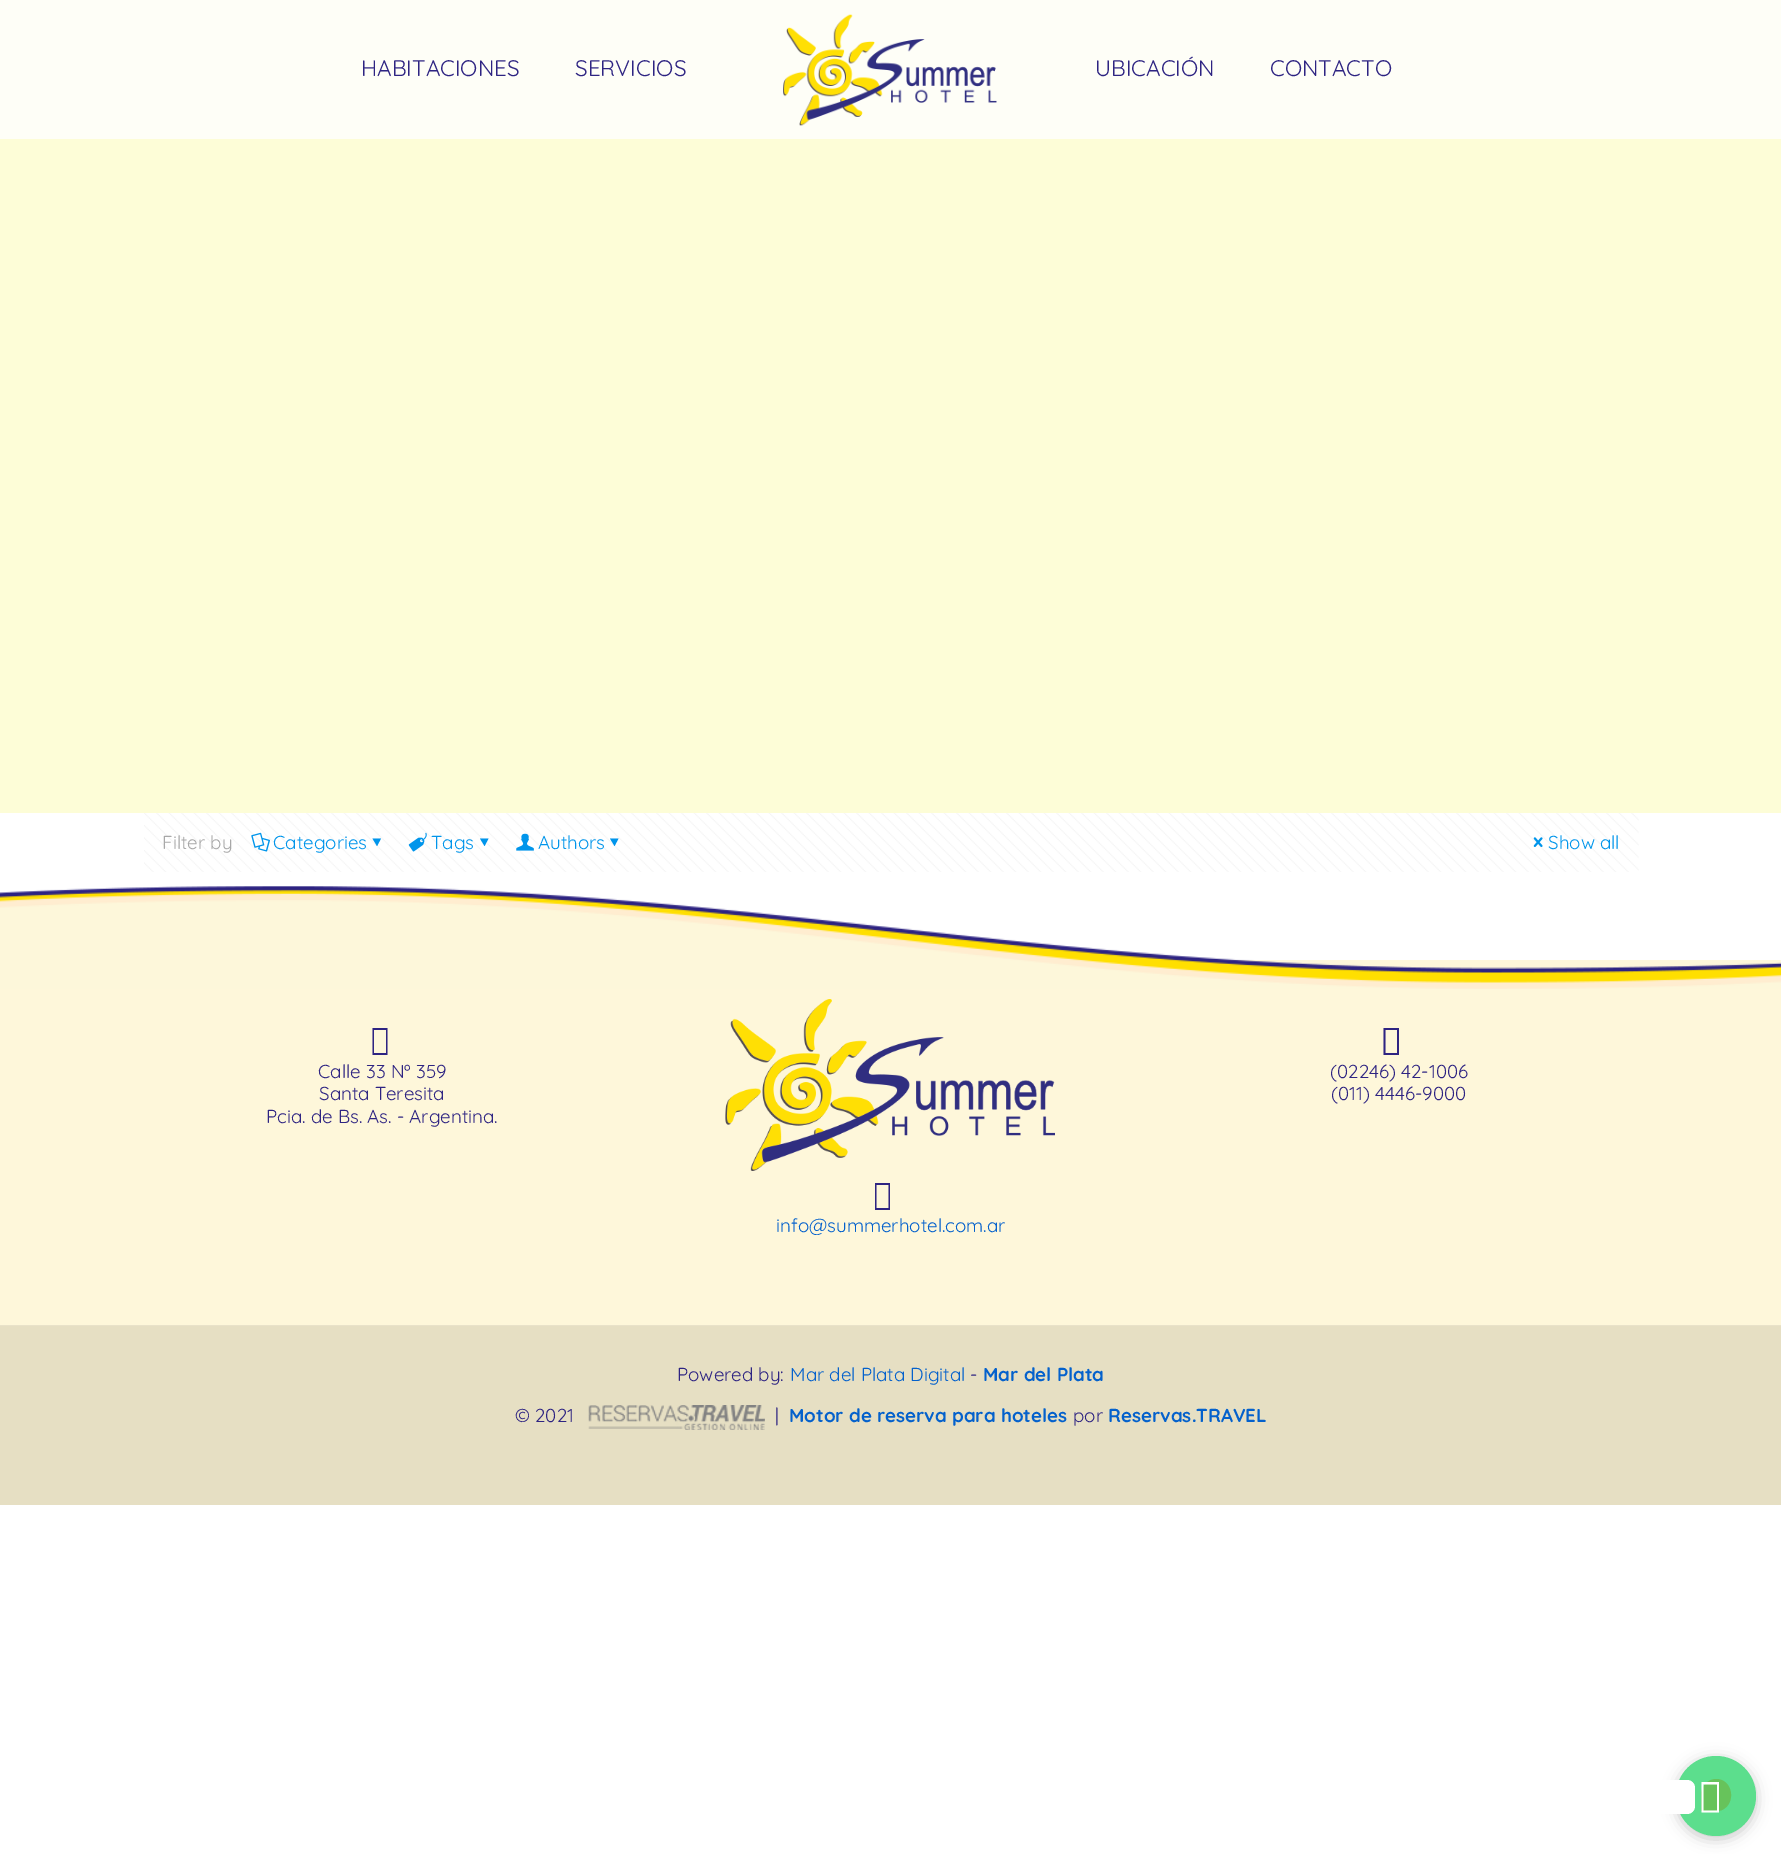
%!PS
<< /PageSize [1781 1854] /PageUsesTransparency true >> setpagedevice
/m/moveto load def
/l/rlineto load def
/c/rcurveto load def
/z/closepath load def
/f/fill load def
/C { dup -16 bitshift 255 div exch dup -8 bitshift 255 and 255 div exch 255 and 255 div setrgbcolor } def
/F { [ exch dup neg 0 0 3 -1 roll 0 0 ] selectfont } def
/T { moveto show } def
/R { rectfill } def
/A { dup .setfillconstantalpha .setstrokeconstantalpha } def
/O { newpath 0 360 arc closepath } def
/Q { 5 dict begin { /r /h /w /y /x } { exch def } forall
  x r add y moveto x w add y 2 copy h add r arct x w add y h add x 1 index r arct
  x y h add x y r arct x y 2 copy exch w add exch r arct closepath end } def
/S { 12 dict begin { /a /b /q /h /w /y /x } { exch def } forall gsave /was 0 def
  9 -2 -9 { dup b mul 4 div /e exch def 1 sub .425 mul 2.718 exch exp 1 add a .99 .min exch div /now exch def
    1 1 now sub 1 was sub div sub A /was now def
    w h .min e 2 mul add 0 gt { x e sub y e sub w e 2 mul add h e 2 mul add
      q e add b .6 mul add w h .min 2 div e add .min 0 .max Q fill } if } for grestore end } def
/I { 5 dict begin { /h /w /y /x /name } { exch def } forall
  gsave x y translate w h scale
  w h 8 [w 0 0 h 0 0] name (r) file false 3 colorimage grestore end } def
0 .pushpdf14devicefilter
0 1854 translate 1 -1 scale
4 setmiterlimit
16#FFFFFF C
0 0 1781 1854 R
16#FDFDD7 C
0 139 1781 674 R
16#FEFEF7 C
0 0 1781 139 R
(1.rgb) 783 14 214 112 I
/Quicksand-Regular 22.5 F
16#2E2482 C
(HABITACIONES) 361 76 T
(SERVICIOS) 575 76 T
(UBICACIÓN) 1095 76 T
(CONTACTO) 1270 76 T
(2.rgb) 144 813 1495 59 I
/Quicksand-Regular 18.75 F
16#A8A8A8 C
(Filter by) 162 849 T
(3.rgb) 251 832 19 20 I
16#0095EB C
(Categories) 273 849 T
381 838.5 m -4 7.5 l -4.5 -7.5 l z f
(4.rgb) 408 832 19 20 I
(Tags) 431 849 T
488.5 838.5 m -4 7.5 l -4.5 -7.5 l z f
(5.rgb) 516 833 18 18 I
(Authors) 538 849 T
618.5 838.5 m -4 7.5 l -4.5 -7.5 l z f
(6.rgb) 1533 837 10 10 I
(Show all) 1548 849 T
16#FEF7DA C
0 960 1781 365 R
(7.rgb) 0 886 1781 103 I
16#2E2482 C
372.5 1055 m 0 -27 l 15 0 l 0 27 l z 374 1053 m 12 0 l 0 -23 l -12 0 l z f
(Calle 33 Nº 359) 318 1078 T
(Santa Teresita) 319 1100 T
(Pcia. de Bs. As. - Argentina.) 266 1123 T
1383.5 1055 m 0 -27 l 15.5 0 l 0 27 l z 1385.5 1053 m 11.5 0 l 0 -23 l -11.5 0 l z f
(\(02246\) 42-1006) 1330 1078 T
(\(011\) 4446-9000) 1331 1100 T
(8.rgb) 725 999 330 172 I
875 1210 m 0 -27 l 15 0 l 0 27 l z 876.5 1208 m 12 0 l 0 -23 l -12 0 l z f
16#0461CC C
(info@summerhotel.com.ar) 776 1232 T
16#E6DFC3 C
0 1326 1781 179 R
16#E9E2C9 C
0 1325 1781 1 R
16#2E2482 C
(Powered by:) 677 1381 T
16#0461CC C
(Mar del Plata Digital) 790 1381 T
16#2E2482 C
(-) 970 1381 T
/Quicksand-Bold 18.75 F
16#0461CC C
(Mar del Plata) 983 1381 T
/Quicksand-Regular 18.75 F
16#2E2482 C
(© 2021) 515 1422 T
(9.rgb) 588 1405 177 25 I
(|) 775 1422 T
/Quicksand-Bold 18.75 F
16#0461CC C
(Motor de reserva para hoteles) 789 1422 T
/Quicksand-Regular 18.75 F
16#2E2482 C
(por) 1073 1422 T
/Quicksand-Bold 18.75 F
16#0461CC C
(Reservas.TRAVEL) 1108 1422 T
16#414141 C
1676 1759 80 80 40 7.5 .3 S
16#5CDE8D C
1716 1796 40 O f
16#FFFFFF C
1514 1780 181 34 8 Q f
16#67C35B C
1716 1779 m 17 0 20.5 24.5 6 31 c -5 2 -15 1 -21 1 c 0 -16 l 0 -9 7 -16 15 -16 c z f
16#FFFFFF C
1701.5 1812.5 m 0 -30.5 l 17.5 0 l 0 30.5 l z 1703.5 1810.5 m 13.5 0 l 0 -26 l -13.5 0 l z f
.poppdf14devicefilter showpage
